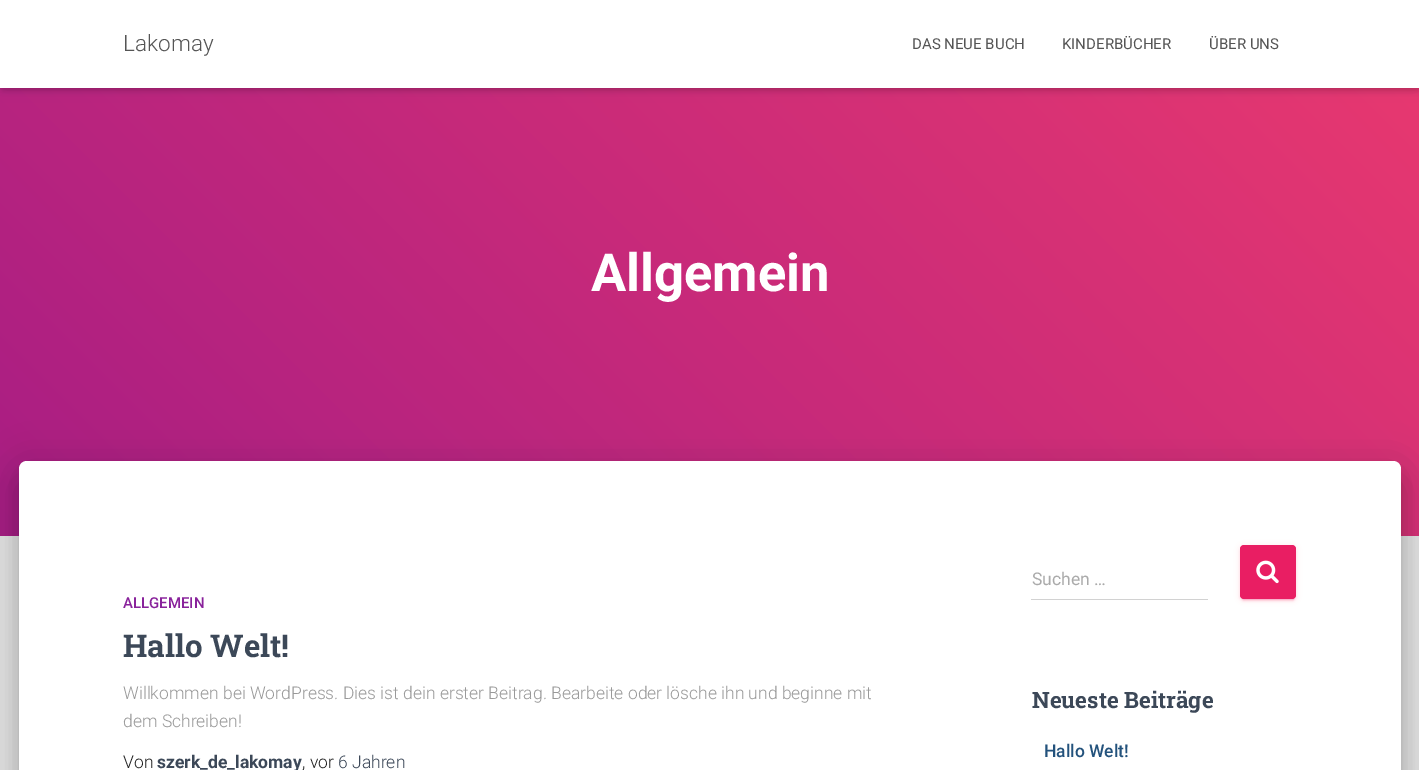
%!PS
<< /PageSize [1419 770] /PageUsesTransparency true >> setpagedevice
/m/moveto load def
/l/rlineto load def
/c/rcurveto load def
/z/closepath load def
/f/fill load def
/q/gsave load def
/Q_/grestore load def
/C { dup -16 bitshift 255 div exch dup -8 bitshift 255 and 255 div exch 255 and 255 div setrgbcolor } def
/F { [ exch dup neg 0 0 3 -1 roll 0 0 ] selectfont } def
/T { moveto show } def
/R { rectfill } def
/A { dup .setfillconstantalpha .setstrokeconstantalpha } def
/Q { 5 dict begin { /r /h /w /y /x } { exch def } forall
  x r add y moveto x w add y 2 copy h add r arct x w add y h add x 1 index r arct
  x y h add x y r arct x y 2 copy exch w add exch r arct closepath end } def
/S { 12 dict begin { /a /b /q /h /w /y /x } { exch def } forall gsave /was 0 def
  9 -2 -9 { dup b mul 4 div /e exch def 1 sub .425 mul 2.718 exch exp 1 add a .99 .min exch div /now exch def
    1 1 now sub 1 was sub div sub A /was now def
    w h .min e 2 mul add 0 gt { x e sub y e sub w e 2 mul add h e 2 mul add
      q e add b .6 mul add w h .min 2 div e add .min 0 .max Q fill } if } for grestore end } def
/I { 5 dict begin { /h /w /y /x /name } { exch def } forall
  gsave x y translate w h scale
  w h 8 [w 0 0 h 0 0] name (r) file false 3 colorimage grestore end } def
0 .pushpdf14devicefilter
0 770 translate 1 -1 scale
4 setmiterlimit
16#E5E5E5 C
0 0 1419 770 R
q 0 88 m 1419 0 l 0 448 l -1419 0 l z clip newpath
<< /ShadingType 2 /ColorSpace /DeviceRGB /Coords [221 757 1199 -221] /Extend [true true] /Function << /FunctionType 2 /Domain [0 1] /C0 [.659 .114 .518] /C1 [.918 .224 .435] /N 1 >> >> shfill Q_
16#000000 C
3 8 1415 82 0 3 .1 S
0 1 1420 88 0 6 .12 S
8 9 1405 72 0 6 .42 S
16#FFFFFF C
0 0 1419 88 R
/Roboto-Light 22.5 F
16#555555 C
(Lakomay) 123 51 T
/Roboto-Regular 15 F
(DAS NEUE BUCH) 912 49 T
(KINDERBÜCHER) 1062 49 T
(ÜBER UNS) 1209 49 T
/Roboto-Bold 52.5 F
16#FFFFFF C
(Allgemein) 591 291 T
16#000000 C
25 478 1370 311 1 6 .2 S
13 463 1395 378 14 19 .12 S
16 479 1388 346 10 15 .14 S
16#FFFFFF C
27 461 m 1366 0 l 4.5 0 8 3.5 8 8 c 0 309 l -1382 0 l 0 -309 l 0 -4.5 3.5 -8 8 -8 c z f
/Roboto-Medium 15 F
16#89229B C
(ALLGEMEIN) 123 608 T
/RobotoSlab-Bold 31.25 F
16#3C4858 C
(Hallo Welt!) 123 657 T
/Roboto-Light 17.5 F
16#999999 C
(Willkommen bei WordPress. Dies ist dein erster Beitrag. Bearbeite oder lösche ihn und beginne mit) 123 699 T
(dem Schreiben!) 123 727 T
16#212121 C
(Von) 123 768 T
/Roboto-Bold 17.5 F
16#3C4858 C
(szerk_de_lakomay) 157 768 T
/Roboto-Light 17.5 F
16#212121 C
(, vor) 302 768 T
16#3C4858 C
(6 Jahren) 338 768 T
/Roboto-Regular 17.5 F
16#AAAAAA C
(Suchen …) 1032 585 T
16#D2D2D2 C
1031 599 177 1 R
16#E91E63 C
1240 546 56 54 4 3 .12 S
1243 551 51 49 1 .5 .2 S
1240 548 56 53 4 1 .14 S
1240 545 56 54 4 Q f
(1.rgb) 1256 560 23 24 I
/RobotoSlab-Bold 22.5 F
16#3C4858 C
(Neueste Beiträge) 1032 708 T
/Roboto-Medium 17.5 F
16#23527C C
(Hallo Welt!) 1044 757 T
.poppdf14devicefilter showpage
